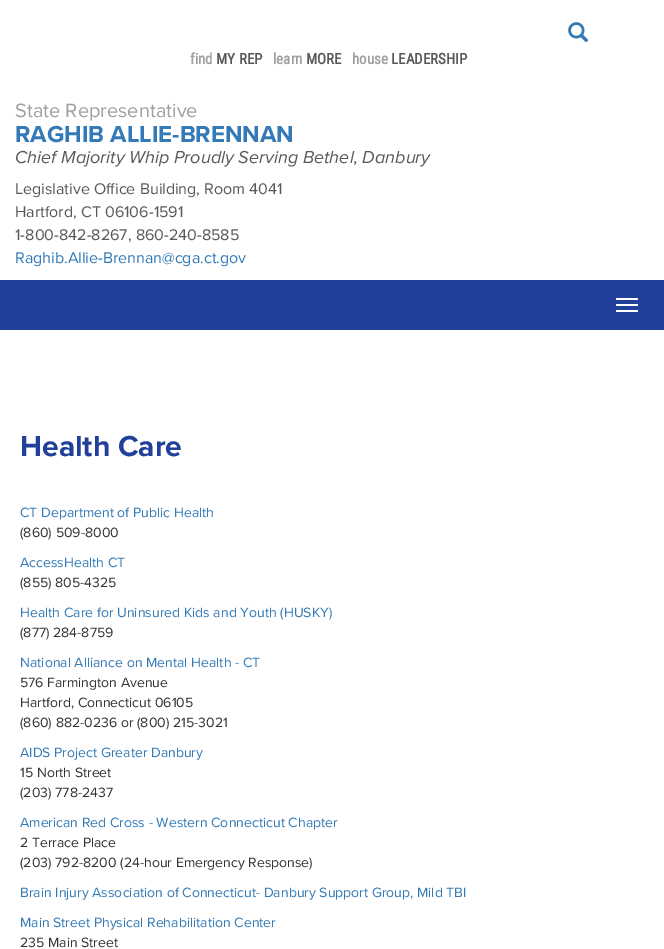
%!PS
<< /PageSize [664 949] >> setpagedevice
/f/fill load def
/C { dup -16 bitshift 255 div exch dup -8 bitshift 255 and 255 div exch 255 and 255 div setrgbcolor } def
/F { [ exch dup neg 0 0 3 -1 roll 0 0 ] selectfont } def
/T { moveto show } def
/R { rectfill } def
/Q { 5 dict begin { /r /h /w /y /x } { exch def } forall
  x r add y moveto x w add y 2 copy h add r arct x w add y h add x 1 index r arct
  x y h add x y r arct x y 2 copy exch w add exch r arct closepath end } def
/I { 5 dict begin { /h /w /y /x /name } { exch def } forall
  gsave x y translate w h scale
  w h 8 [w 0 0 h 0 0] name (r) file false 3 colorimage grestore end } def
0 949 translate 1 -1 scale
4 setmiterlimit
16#FFFFFF C
0 0 664 949 R
(1.rgb) 568 22 21 21 I
/RobotoCondensed-Bold 15 F
16#A0A0A0 C
(find) 190 64 T
16#595959 C
(MY REP) 216 64 T
16#A0A0A0 C
(learn) 273 64 T
16#595959 C
(MORE) 306 64 T
16#A0A0A0 C
(house) 352 64 T
16#595959 C
(LEADERSHIP) 391 64 T
/ProximaNova-Regular 20 F
16#A0A0A0 C
(State Representative) 15 117 T
/ProximaNova-Bold 24 F
16#337AB7 C
(RAGHIB ALLIE-BRENNAN) 15 142 T
/ProximaNova-Italic 18 F
16#595959 C
(Chief Majority Whip Proudly Serving Bethel, Danbury) 15 163 T
/ProximaNova-Regular 16 F
(Legislative Office Building, Room 4041) 15 194 T
(Hartford, CT 06106-1591) 15 217 T
(1-800-842-8267, 860-240-8585) 15 240 T
16#337AB7 C
(Raghib.Allie-Brennan@cga.ct.gov) 15 263 T
16#21409A C
0 280 664 50 R
16#FFFFFF C
616 298 22 2 1 Q f
616 304 22 2 1 Q f
616 310 22 2 1 Q f
/ProximaNova-Bold 30 F
16#21409A C
(Health Care) 20 456 T
/ProximaNova-Regular 14 F
16#337AB7 C
(CT Department of Public Health) 20 517 T
16#333333 C
(\(860\) 509-8000) 20 537 T
16#337AB7 C
(AccessHealth CT) 20 567 T
16#333333 C
(\(855\) 805-4325) 20 587 T
16#337AB7 C
(Health Care for Uninsured Kids and Youth \(HUSKY\)) 20 617 T
16#333333 C
(\(877\) 284-8759) 20 637 T
16#337AB7 C
(National Alliance on Mental Health - CT) 20 667 T
16#333333 C
(576 Farmington Avenue) 20 687 T
(Hartford, Connecticut 06105) 20 707 T
(\(860\) 882-0236 or \(800\) 215-3021) 20 727 T
16#337AB7 C
(AIDS Project Greater Danbury) 20 757 T
16#333333 C
(15 North Street) 20 777 T
(\(203\) 778-2437) 20 797 T
16#337AB7 C
(American Red Cross - Western Connecticut Chapter) 20 827 T
16#333333 C
(2 Terrace Place) 20 847 T
(\(203\) 792-8200 \(24-hour Emergency Response\)) 20 867 T
16#337AB7 C
(Brain Injury Association of Connecticut- Danbury Support Group, Mild TBI) 20 897 T
(Main Street Physical Rehabilitation Center) 20 927 T
16#333333 C
(235 Main Street) 20 947 T
showpage
